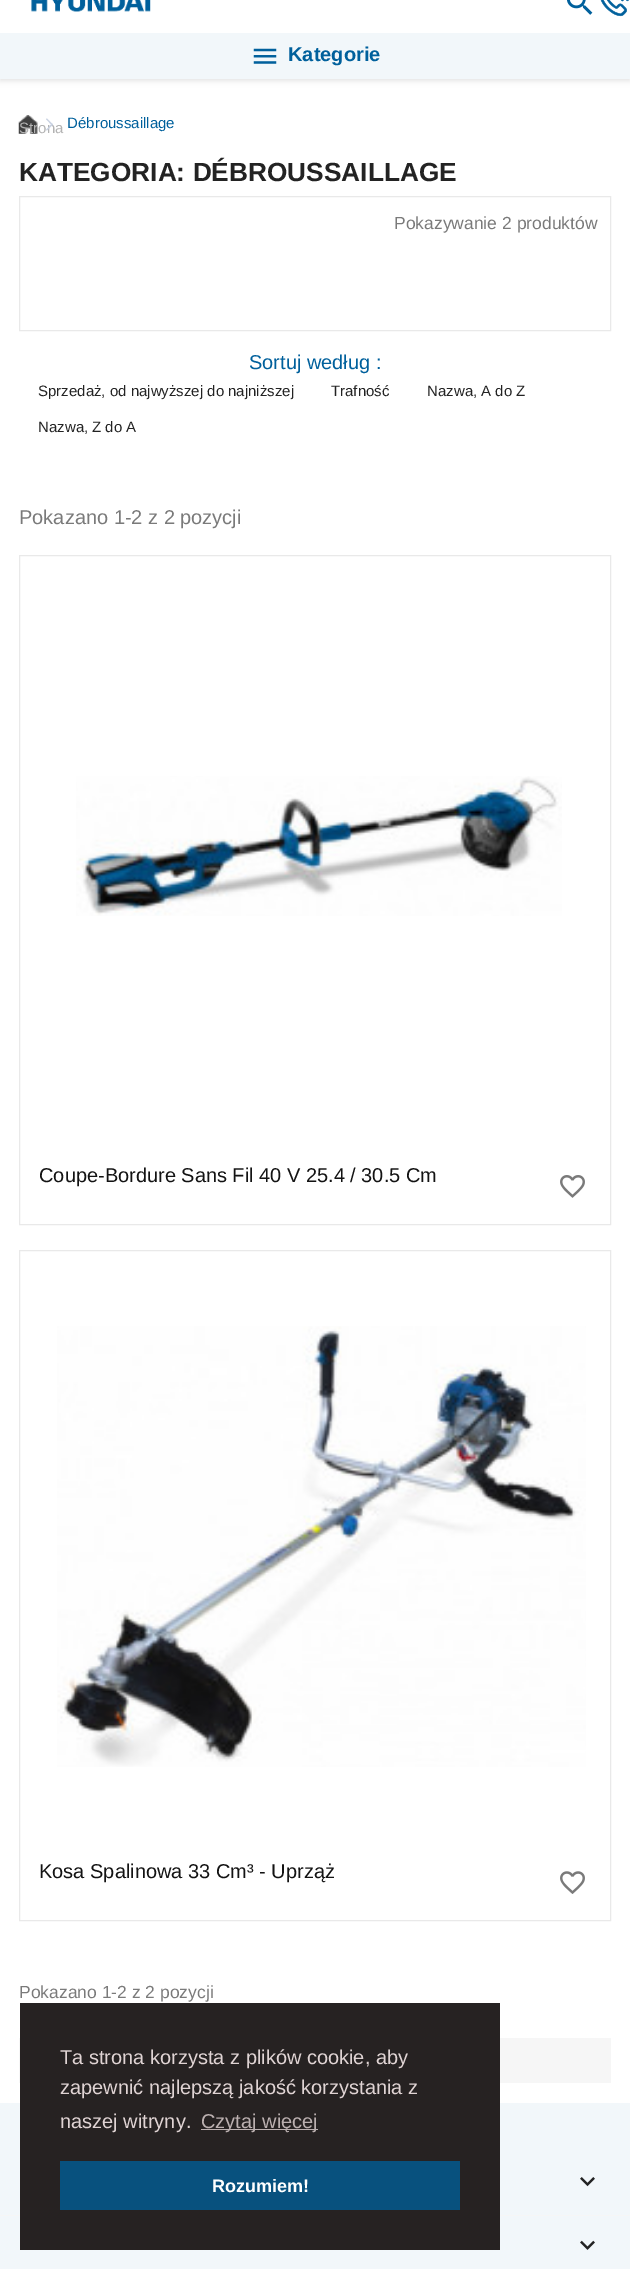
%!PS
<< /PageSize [630 2269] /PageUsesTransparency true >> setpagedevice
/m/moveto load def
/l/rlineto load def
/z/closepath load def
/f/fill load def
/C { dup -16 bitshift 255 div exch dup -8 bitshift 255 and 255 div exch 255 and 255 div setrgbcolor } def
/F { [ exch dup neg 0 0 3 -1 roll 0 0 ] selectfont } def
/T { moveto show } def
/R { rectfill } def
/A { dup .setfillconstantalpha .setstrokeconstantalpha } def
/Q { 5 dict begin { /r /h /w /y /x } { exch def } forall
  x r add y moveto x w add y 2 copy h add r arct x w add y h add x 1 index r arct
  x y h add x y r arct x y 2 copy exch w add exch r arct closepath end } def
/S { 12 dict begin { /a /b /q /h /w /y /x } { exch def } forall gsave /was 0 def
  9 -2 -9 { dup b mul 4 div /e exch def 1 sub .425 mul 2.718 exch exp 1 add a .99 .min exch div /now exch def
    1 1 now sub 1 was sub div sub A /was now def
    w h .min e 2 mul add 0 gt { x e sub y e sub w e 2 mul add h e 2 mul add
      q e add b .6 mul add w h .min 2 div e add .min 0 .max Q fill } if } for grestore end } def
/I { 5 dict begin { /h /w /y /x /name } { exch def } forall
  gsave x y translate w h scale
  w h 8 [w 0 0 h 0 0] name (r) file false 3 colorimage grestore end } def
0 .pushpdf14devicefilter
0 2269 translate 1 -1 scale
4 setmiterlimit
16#FFFFFF C
0 0 630 2269 R
16#000000 C
0 -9 630 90 0 3 .11 S
16#FFFFFF C
0 0 630 33 R
(1.rgb) 31 0 120 12 I
(2.rgb) 567 0 26 15 I
(3.rgb) 600 0 29 17 I
16#F2F7FA C
0 33 630 46 R
(4.rgb) 253 48 24 16 I
/LiberationSans-Bold 20 F
16#00609C C
(Kategorie) 288 61 T
(5.rgb) 18 115 20 19 I
/LiberationSans-Regular 15 F
16#B3B3B3 C
(Strona) 19 133 T
16#C9D2E2 C
47 118.5 m 6 6 l -1 1 l -6 -6.5 l z f
52 123.5 m 1 1 l -6 6 l -1 -.5 l z f
16#00609C C
(Débroussaillage) 67 128 T
/LiberationSans-Bold 26.25 F
16#232323 C
(KATEGORIA: DÉBROUSSAILLAGE) 19 181 T
16#E9E9E9 C
19.5 196.5 591 134 rectstroke
/LiberationSans-Regular 17.5 F
16#7A7A7A C
(Pokazywanie 2 produktów) 394 229 T
/LiberationSans-Regular 20 F
16#00609C C
(Sortuj według :) 249 369 T
/LiberationSans-Regular 15 F
16#232323 C
(Sprzedaż, od najwyższej do najniższej) 38 396 T
(Trafność) 331 396 T
(Nazwa, A do Z) 427 396 T
(Nazwa, Z do A) 38 432 T
/LiberationSans-Regular 20 F
16#7A7A7A C
(Pokazano 1-2 z 2 pozycji) 19 524 T
16#E9E9E9 C
19.5 555.5 591 669 rectstroke
(6.rgb) 76 776 486 140 I
16#131313 C
(Coupe-Bordure Sans Fil 40 V 25.4 / 30.5 Cm) 39 1182 T
(7.rgb) 560 1175 25 23 I
16#E9E9E9 C
19.5 1250.5 591 670 rectstroke
(8.rgb) 57 1326 529 441 I
16#131313 C
(Kosa Spalinowa 33 Cm³ - Uprząż) 39 1878 T
(9.rgb) 560 1871 25 23 I
/LiberationSans-Regular 17.5 F
16#7A7A7A C
(Pokazano 1-2 z 2 pozycji) 19 1998 T
16#F6F6F6 C
19 2038 592 45 R
16#F2F7FA C
0 2103 630 166 R
16#F6F6F6 C
0 2215 630 1 R
(10.rgb) 580 2177 15 10 I
(11.rgb) 580 2240 15 10 I
16#262222 C
20 2003 480 247 R
/LiberationSans-Regular 20 F
16#E0D4D4 C
(Ta strona korzysta z plików cookie, aby) 60 2064 T
(zapewnić najlepszą jakość korzystania z) 60 2094 T
(naszej witryny.) 60 2128 T
16#BBB0B0 C
201 2129 117 1 R
(Czytaj więcej) 201 2128 T
16#08517E C
60 2161 400 49 R
/LiberationSans-Bold 18 F
16#FFFFFF C
(Rozumiem!) 212 2192 T
.poppdf14devicefilter showpage
